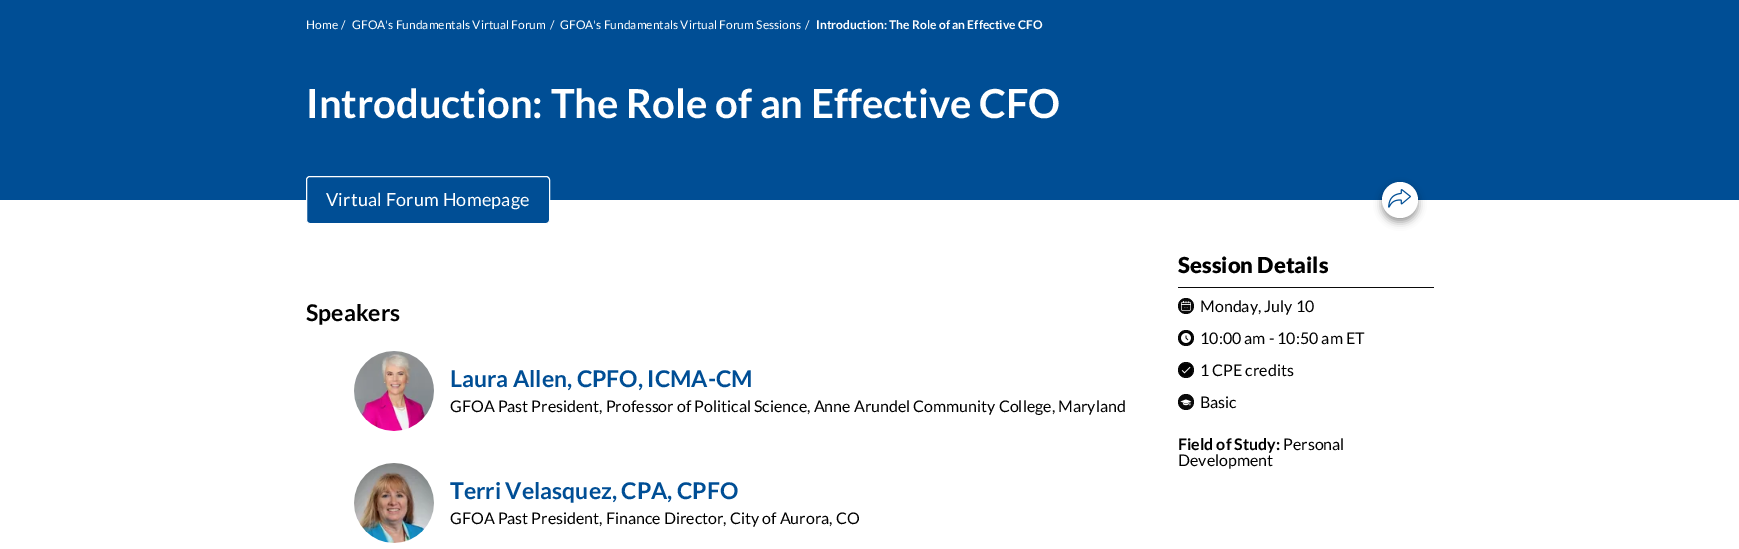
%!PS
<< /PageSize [1739 549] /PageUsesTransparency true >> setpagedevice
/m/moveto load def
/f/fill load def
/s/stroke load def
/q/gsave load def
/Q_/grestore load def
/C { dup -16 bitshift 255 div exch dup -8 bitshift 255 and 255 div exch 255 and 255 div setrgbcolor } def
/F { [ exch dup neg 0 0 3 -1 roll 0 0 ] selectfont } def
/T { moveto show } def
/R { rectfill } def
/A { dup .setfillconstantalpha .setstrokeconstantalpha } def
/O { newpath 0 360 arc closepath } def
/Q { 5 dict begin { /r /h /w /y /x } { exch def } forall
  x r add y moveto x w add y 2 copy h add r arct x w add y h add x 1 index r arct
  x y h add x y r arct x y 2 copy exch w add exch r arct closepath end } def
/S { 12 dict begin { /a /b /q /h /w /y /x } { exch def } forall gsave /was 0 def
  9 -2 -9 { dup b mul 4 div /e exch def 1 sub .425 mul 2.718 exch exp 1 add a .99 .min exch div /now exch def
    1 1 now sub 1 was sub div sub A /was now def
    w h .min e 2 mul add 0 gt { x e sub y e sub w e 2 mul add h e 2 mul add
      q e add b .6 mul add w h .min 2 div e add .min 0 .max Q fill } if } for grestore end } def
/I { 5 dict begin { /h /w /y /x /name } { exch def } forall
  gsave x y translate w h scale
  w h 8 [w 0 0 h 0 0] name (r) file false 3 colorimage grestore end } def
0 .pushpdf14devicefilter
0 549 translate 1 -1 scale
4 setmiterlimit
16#FFFFFF C
0 0 1739 549 R
16#004E95 C
0 0 1739 200 R
/Lato-Regular 12 F
16#FFFFFF C
(Home) 306 29 T
(/) 341 29 T
(GFOA's Fundamentals Virtual Forum) 352 29 T
(/) 550 29 T
(GFOA's Fundamentals Virtual Forum Sessions) 560 29 T
(/) 805 29 T
/Lato-Bold 12 F
(Introduction: The Role of an Effective CFO) 816 29 T
/Lato-Bold 40 F
(Introduction: The Role of an Effective CFO) 306 118 T
16#004E95 C
306.5 176.5 243 47 3.5 Q q f Q_
16#FFFFFF C
s
/Lato-Regular 18 F
326 206 m .2 0 (Virtual Forum Homepage) ashow
16#000000 C
1382 186 36 36 18 4 .4 S
16#FFFFFF C
1400 200 18 O f
(1.rgb) 1388 189 23 19 I
/Lato-Bold 23 F
16#000000 C
(Speakers) 306 321 T
(2.rgb) 354 351 80 80 I
16#004E95 C
(Laura Allen, CPFO, ICMA-CM) 450 387 T
/Lato-Regular 16 F
16#000000 C
(GFOA Past President, Professor of Political Science, Anne Arundel Community College, Maryland) 450 412 T
(3.rgb) 354 463 80 80 I
/Lato-Bold 23 F
16#004E95 C
(Terri Velasquez, CPA, CPFO) 450 499 T
/Lato-Regular 16 F
16#000000 C
(GFOA Past President, Finance Director, City of Aurora, CO) 450 524 T
16#0A0A0A C
1178 287 256 1 R
/Lato-Black 22 F
16#000000 C
(Session Details) 1178 273 T
16#0A0A0A C
1186 306 8 O f
(4.rgb) 1181 301 10 10 I
/Lato-Regular 16 F
16#000000 C
(Monday, July 10) 1200 312 T
16#0A0A0A C
1186 338 8 O f
(5.rgb) 1180 332 12 12 I
16#000000 C
(10:00 am - 10:50 am ET) 1200 344 T
16#0A0A0A C
1186 370 8 O f
(6.rgb) 1180 364 12 12 I
16#000000 C
(1 CPE credits) 1200 376 T
16#0A0A0A C
1186 402 8 O f
(7.rgb) 1180 399 12 7 I
16#000000 C
(Basic) 1200 408 T
/Lato-Bold 16 F
(Field of Study:) 1178 450 T
/Lato-Regular 16 F
(Personal) 1283 450 T
(Development) 1178 466 T
.poppdf14devicefilter showpage
